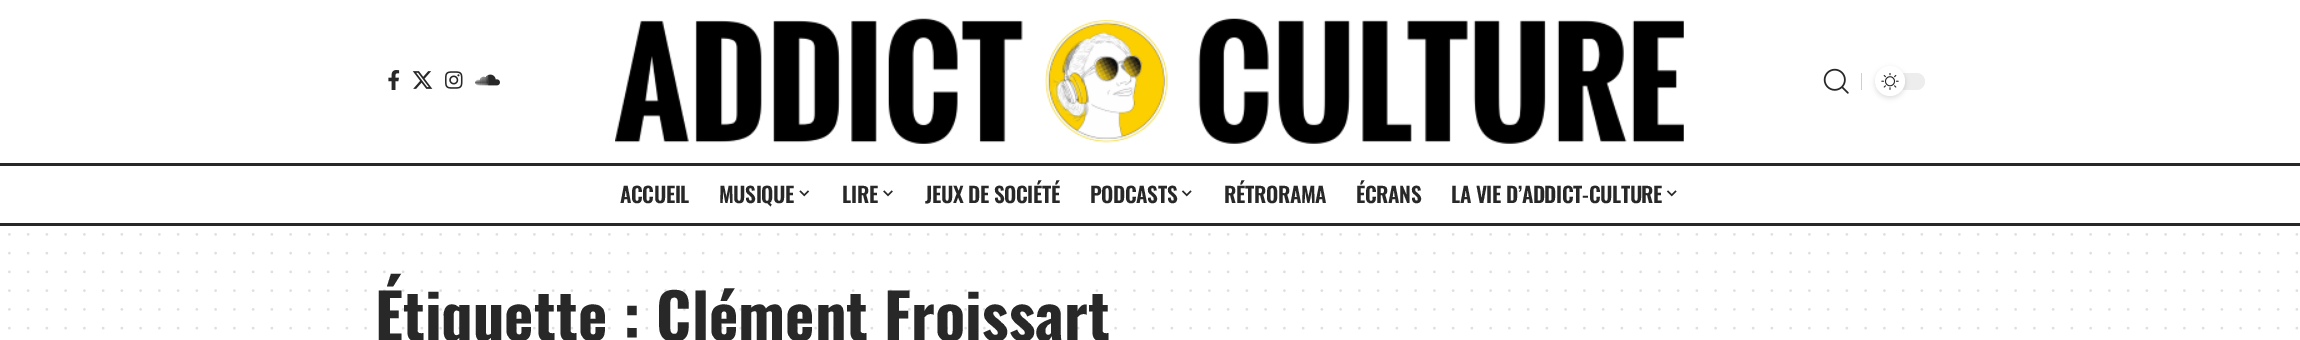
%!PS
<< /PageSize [2300 340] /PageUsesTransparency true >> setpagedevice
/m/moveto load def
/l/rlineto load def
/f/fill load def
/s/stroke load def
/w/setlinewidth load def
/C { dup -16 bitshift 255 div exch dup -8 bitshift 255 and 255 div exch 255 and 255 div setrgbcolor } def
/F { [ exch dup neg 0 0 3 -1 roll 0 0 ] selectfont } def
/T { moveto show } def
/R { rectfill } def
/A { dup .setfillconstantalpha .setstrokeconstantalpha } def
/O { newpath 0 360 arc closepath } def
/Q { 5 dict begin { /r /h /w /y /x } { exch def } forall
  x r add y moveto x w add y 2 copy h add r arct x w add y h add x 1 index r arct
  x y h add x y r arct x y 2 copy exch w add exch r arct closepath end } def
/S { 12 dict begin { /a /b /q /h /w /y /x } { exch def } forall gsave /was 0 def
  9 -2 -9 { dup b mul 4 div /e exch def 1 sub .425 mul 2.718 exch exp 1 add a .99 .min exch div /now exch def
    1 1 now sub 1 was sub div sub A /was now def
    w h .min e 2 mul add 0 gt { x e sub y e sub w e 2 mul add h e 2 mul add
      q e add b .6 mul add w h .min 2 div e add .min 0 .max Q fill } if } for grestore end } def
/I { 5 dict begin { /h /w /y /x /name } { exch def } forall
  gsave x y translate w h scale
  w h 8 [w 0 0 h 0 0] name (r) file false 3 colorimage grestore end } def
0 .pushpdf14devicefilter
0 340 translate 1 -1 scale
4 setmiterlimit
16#FFFFFF C
0 0 2300 340 R
(1.rgb) 388 70 12 20 I
(2.rgb) 412 71 21 18 I
(3.rgb) 445 71 18 18 I
(4.rgb) 475 74 25 12 I
(5.rgb) 615 18 1069 126 I
(6.rgb) 1823 68 26 26 I
16#CFCFCF C
1861 73 1 17 R
16#EDEDED C
1875 73 50 17 8.5 Q f
16#000000 C
1875 68 30 30 15 2.5 .12 S
16#FFFFFF C
1890 81 15 O f
(7.rgb) 1881 73 18 17 I
16#282828 C
0 163 2300 3 R
/Oswald-SemiBold 21.25 F
620 203 m -.4 0 (ACCUEIL) ashow
719 203 m -.4 0 (MUSIQUE) ashow
(8.rgb) 799 190 11 7 I
842 203 m -.4 0 (LIRE) ashow
(9.rgb) 883 190 10 7 I
925 203 m -.4 0 (JEUX DE SOCIÉTÉ) ashow
1090 203 m -.4 0 (PODCASTS) ashow
(10.rgb) 1181 190 11 7 I
1224 203 m -.4 0 (RÉTRORAMA) ashow
1356 203 m -.4 0 (ÉCRANS) ashow
1451 203 m -.4 0 (LA VIE D’ADDICT-CULTURE) ashow
(10.rgb) 1666 190 11 7 I
0 223 2300 3 R
16#DFDFDF C
2.5 w
1 setlinecap
[0 18.75] 0 setdash
9.4 234.4 m 2287.7 0 l s
9.4 253.1 m 2287.7 0 l s
/Oswald-Bold 62.5 F
16#282828 C
(Étiquette : Clément Froissart) 375 341 T
16#DFDFDF C
9.4 271.9 m 2287.7 0 l s
0.15 A
16#282828 C
9.4 290.6 m 2287.7 0 l s
9.4 309.4 m 2287.7 0 l s
9.4 328.1 m 2287.7 0 l s
.poppdf14devicefilter showpage
